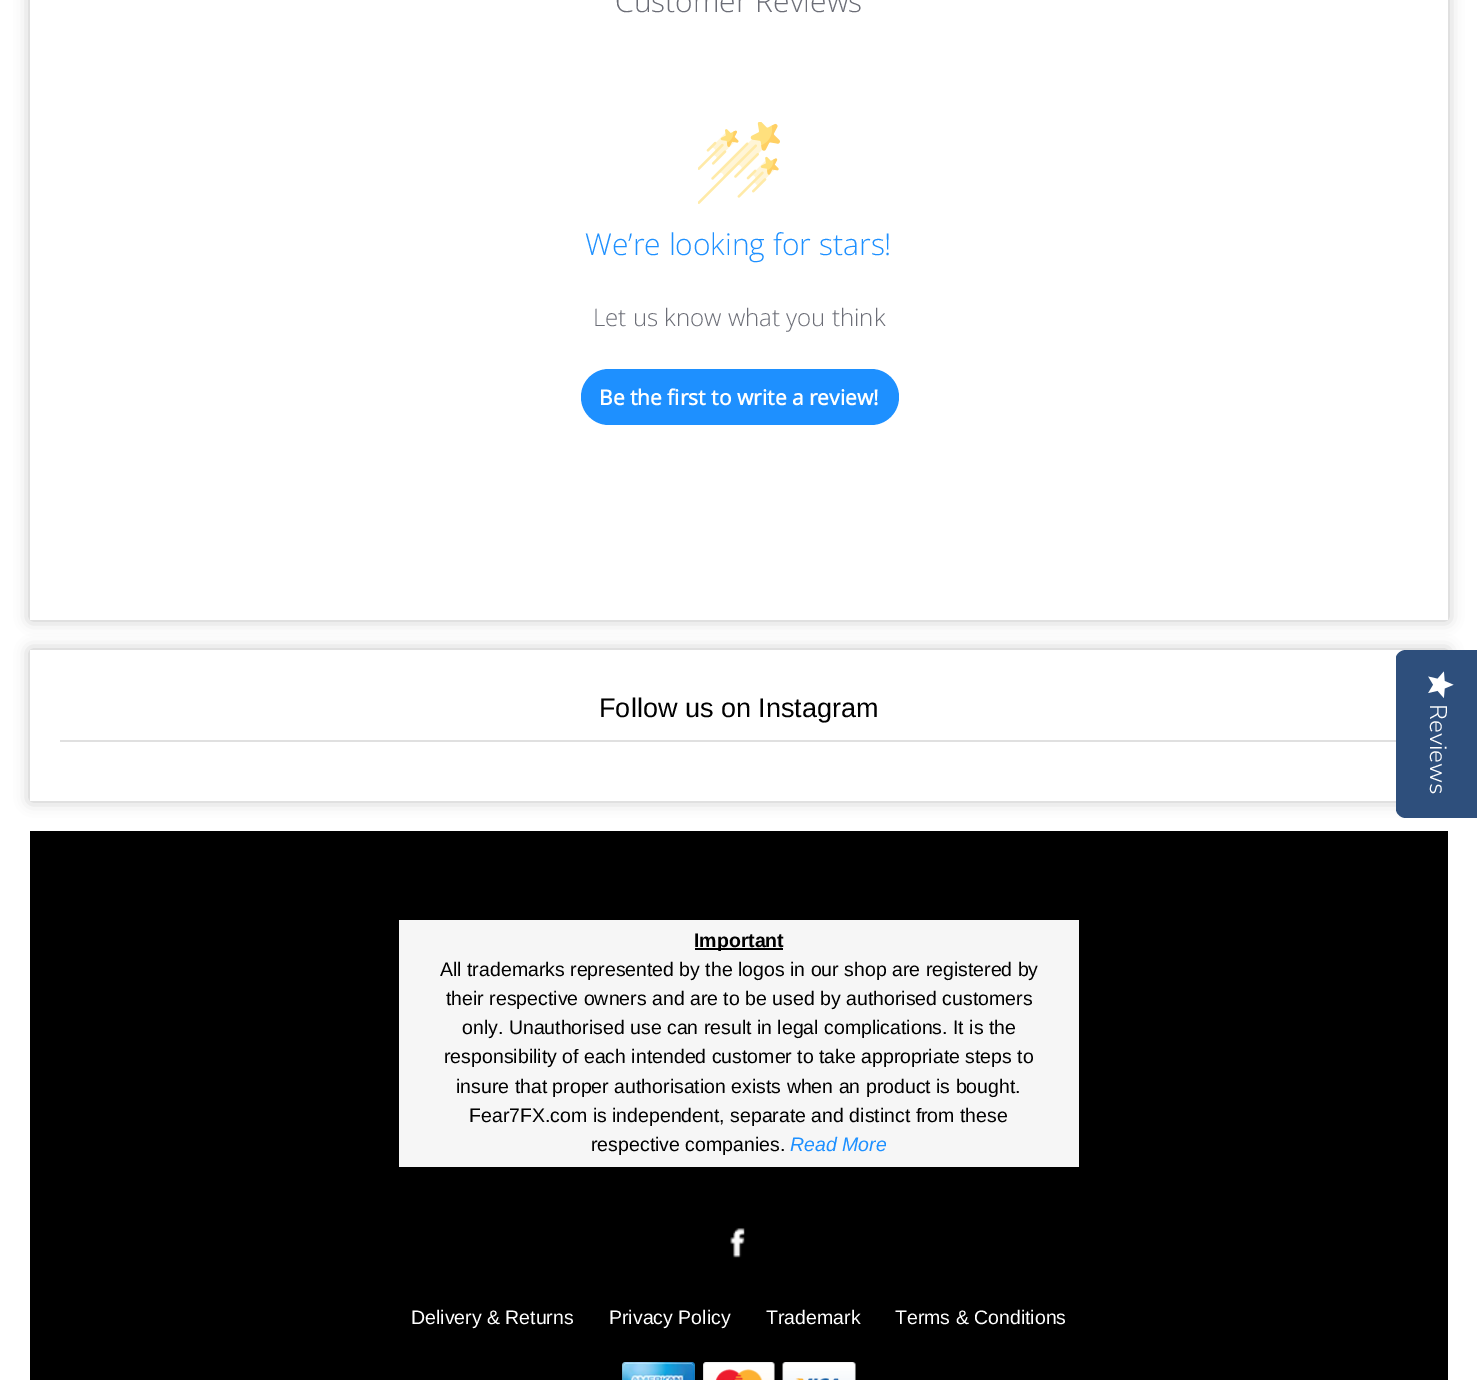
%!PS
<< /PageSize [1477 1380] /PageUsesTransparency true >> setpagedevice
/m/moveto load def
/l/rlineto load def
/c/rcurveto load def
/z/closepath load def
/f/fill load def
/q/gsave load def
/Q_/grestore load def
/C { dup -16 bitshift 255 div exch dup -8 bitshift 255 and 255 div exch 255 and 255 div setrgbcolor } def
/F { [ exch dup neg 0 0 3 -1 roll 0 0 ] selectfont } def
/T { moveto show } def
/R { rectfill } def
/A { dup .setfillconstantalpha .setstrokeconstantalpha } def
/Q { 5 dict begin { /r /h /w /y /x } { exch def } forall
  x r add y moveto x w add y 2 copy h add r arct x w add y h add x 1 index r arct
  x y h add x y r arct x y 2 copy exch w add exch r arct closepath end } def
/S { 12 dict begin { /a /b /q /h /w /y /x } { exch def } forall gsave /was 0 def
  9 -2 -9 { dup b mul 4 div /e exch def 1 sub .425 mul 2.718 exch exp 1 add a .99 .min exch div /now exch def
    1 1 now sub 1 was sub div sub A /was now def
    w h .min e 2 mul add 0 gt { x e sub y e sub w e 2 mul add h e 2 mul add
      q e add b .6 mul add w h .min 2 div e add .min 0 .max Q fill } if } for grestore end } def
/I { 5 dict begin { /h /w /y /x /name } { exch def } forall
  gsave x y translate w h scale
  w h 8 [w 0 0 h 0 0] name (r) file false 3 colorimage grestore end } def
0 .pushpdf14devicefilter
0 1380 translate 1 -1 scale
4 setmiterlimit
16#FFFFFF C
0 0 1477 1380 R
16#C0C0C0 C
30 -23 1418 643 0 7.5 1 S
16#FFFFFF C
30 0 1418 620 R
/OpenSans-Light 30 F
16#6B6D76 C
(Customer Reviews) 615 12 T
(1.rgb) 698 122 82 82 I
16#1E90FF C
(We’re looking for stars!) 585 255 T
/OpenSans-Light 24 F
16#6B6D76 C
(Let us know what you think) 593 326 T
16#1E90FF C
581 369 318 56 28 Q f
/OpenSans-Bold 21 F
16#FFFFFF C
(Be the first to write a review!) 599 405 T
16#C0C0C0 C
30 650 1418 151 0 7.5 1 S
16#FFFFFF C
30 650 1376 151 R
16#E0E0E0 C
60 740 1336 2 R
/LiberationSans-Regular 27 F
16#000000 C
(Follow us on Instagram) 599 717 T
30 831 1418 549 R
16#F6F6F6 C
399 920 680 247 R
16#000000 C
695 948 88 2 R
/LiberationSans-Bold 19.5 F
(Important) 694 947 T
/LiberationSans-Regular 19.5 F
(All trademarks represented by the logos in our shop are registered by) 440 976 T
(their respective owners and are to be used by authorised customers) 446 1005 T
(only. Unauthorised use can result in legal complications. It is the) 462 1034 T
(responsibility of each intended customer to take appropriate steps to) 444 1063 T
(insure that proper authorisation exists when an product is bought.) 456 1093 T
(Fear7FX.com is independent, separate and distinct from these) 469 1122 T
(respective companies.) 591 1151 T
/LiberationSans-Italic 19.5 F
16#1E90FF C
(Read More) 790 1151 T
(2.rgb) 730 1228 15 30 I
/LiberationSans-Regular 19.5 F
16#FFFFFF C
(Delivery & Returns) 411 1324 T
(Privacy Policy) 609 1324 T
(Trademark) 766 1324 T
(Terms & Conditions) 895 1324 T
(3.rgb) 622 1362 73 18 I
(4.rgb) 703 1362 72 18 I
(5.rgb) 782 1362 74 18 I
16#2E4F7C C
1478 650 m 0 168 l -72 0 l -5 0 -10 -4 -10 -9 c 0 -151 l 0 -4 5 -8 10 -8 c z f
(6.rgb) 1428 671 26 27 I
/NunitoSans-Light 24 F
16#FFFFFF C
q 1430 704 translate 90 rotate 0 0 m (Reviews) show Q_
.poppdf14devicefilter showpage
